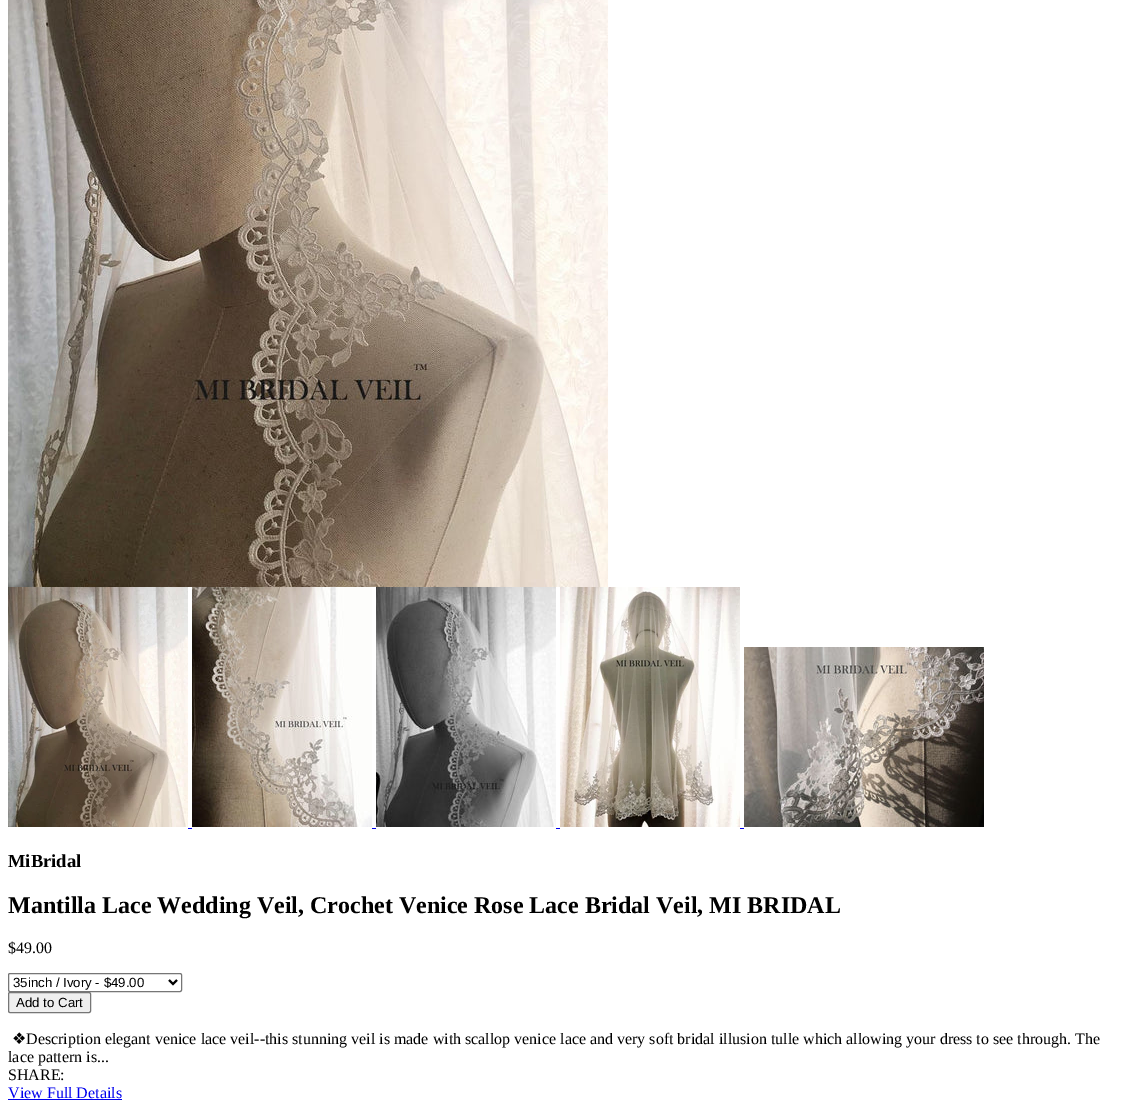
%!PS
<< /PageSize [1135 1110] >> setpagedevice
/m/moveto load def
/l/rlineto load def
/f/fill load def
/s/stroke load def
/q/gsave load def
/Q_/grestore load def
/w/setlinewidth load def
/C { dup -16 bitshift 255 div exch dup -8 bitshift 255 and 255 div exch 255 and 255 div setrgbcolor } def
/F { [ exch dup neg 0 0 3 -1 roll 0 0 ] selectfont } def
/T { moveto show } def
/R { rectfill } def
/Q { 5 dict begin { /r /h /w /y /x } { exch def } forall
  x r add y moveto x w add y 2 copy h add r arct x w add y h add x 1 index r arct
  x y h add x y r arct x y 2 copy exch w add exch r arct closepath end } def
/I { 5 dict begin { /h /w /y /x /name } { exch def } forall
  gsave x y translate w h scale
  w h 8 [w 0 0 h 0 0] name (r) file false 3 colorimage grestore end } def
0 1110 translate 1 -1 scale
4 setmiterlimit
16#FFFFFF C
0 0 1135 1110 R
(1.rgb) 8 0 600 587 I
(2.rgb) 8 587 180 240 I
(3.rgb) 192 587 180 240 I
(4.rgb) 376 587 180 240 I
(5.rgb) 560 587 180 240 I
(6.rgb) 744 647 240 180 I
16#0000EE C
188 828 4 1 R
372 828 4 1 R
556 828 4 1 R
740 828 4 1 R
/LiberationSerif-Bold 18.5 F
16#000000 C
(MiBridal) 8 867 T
/LiberationSerif-Bold 24 F
(Mantilla Lace Wedding Veil, Crochet Venice Rose Lace Bridal Veil, MI BRIDAL) 8 913 T
/LiberationSerif-Regular 16 F
($49.00) 8 953 T
16#767676 C
8.5 973.5 173 18 1.5 Q s
16#000000 C
2 w
169 980 m 4 4 l 4 -4 l s
/LiberationSans-Regular 13.25 F
(35inch / Ivory - $49.00) 13 987 T
16#EFEFEF C
8.5 992.5 82 20 1.5 Q q f Q_
16#767676 C
1 w
s
16#000000 C
(Add to Cart) 16 1007 T
/DejaVuSans-Regular 16 F
(❖) 12 1044 T
/LiberationSerif-Regular 16 F
(Description elegant venice lace veil--this stunning veil is made with scallop venice lace and very soft bridal illusion tulle which allowing your dress to see through. The) 26 1044 T
(lace pattern is...) 8 1062 T
(SHARE:) 8 1080 T
16#0000EE C
(View Full Details) 8 1098 T
8 1099 114 1 R
showpage
